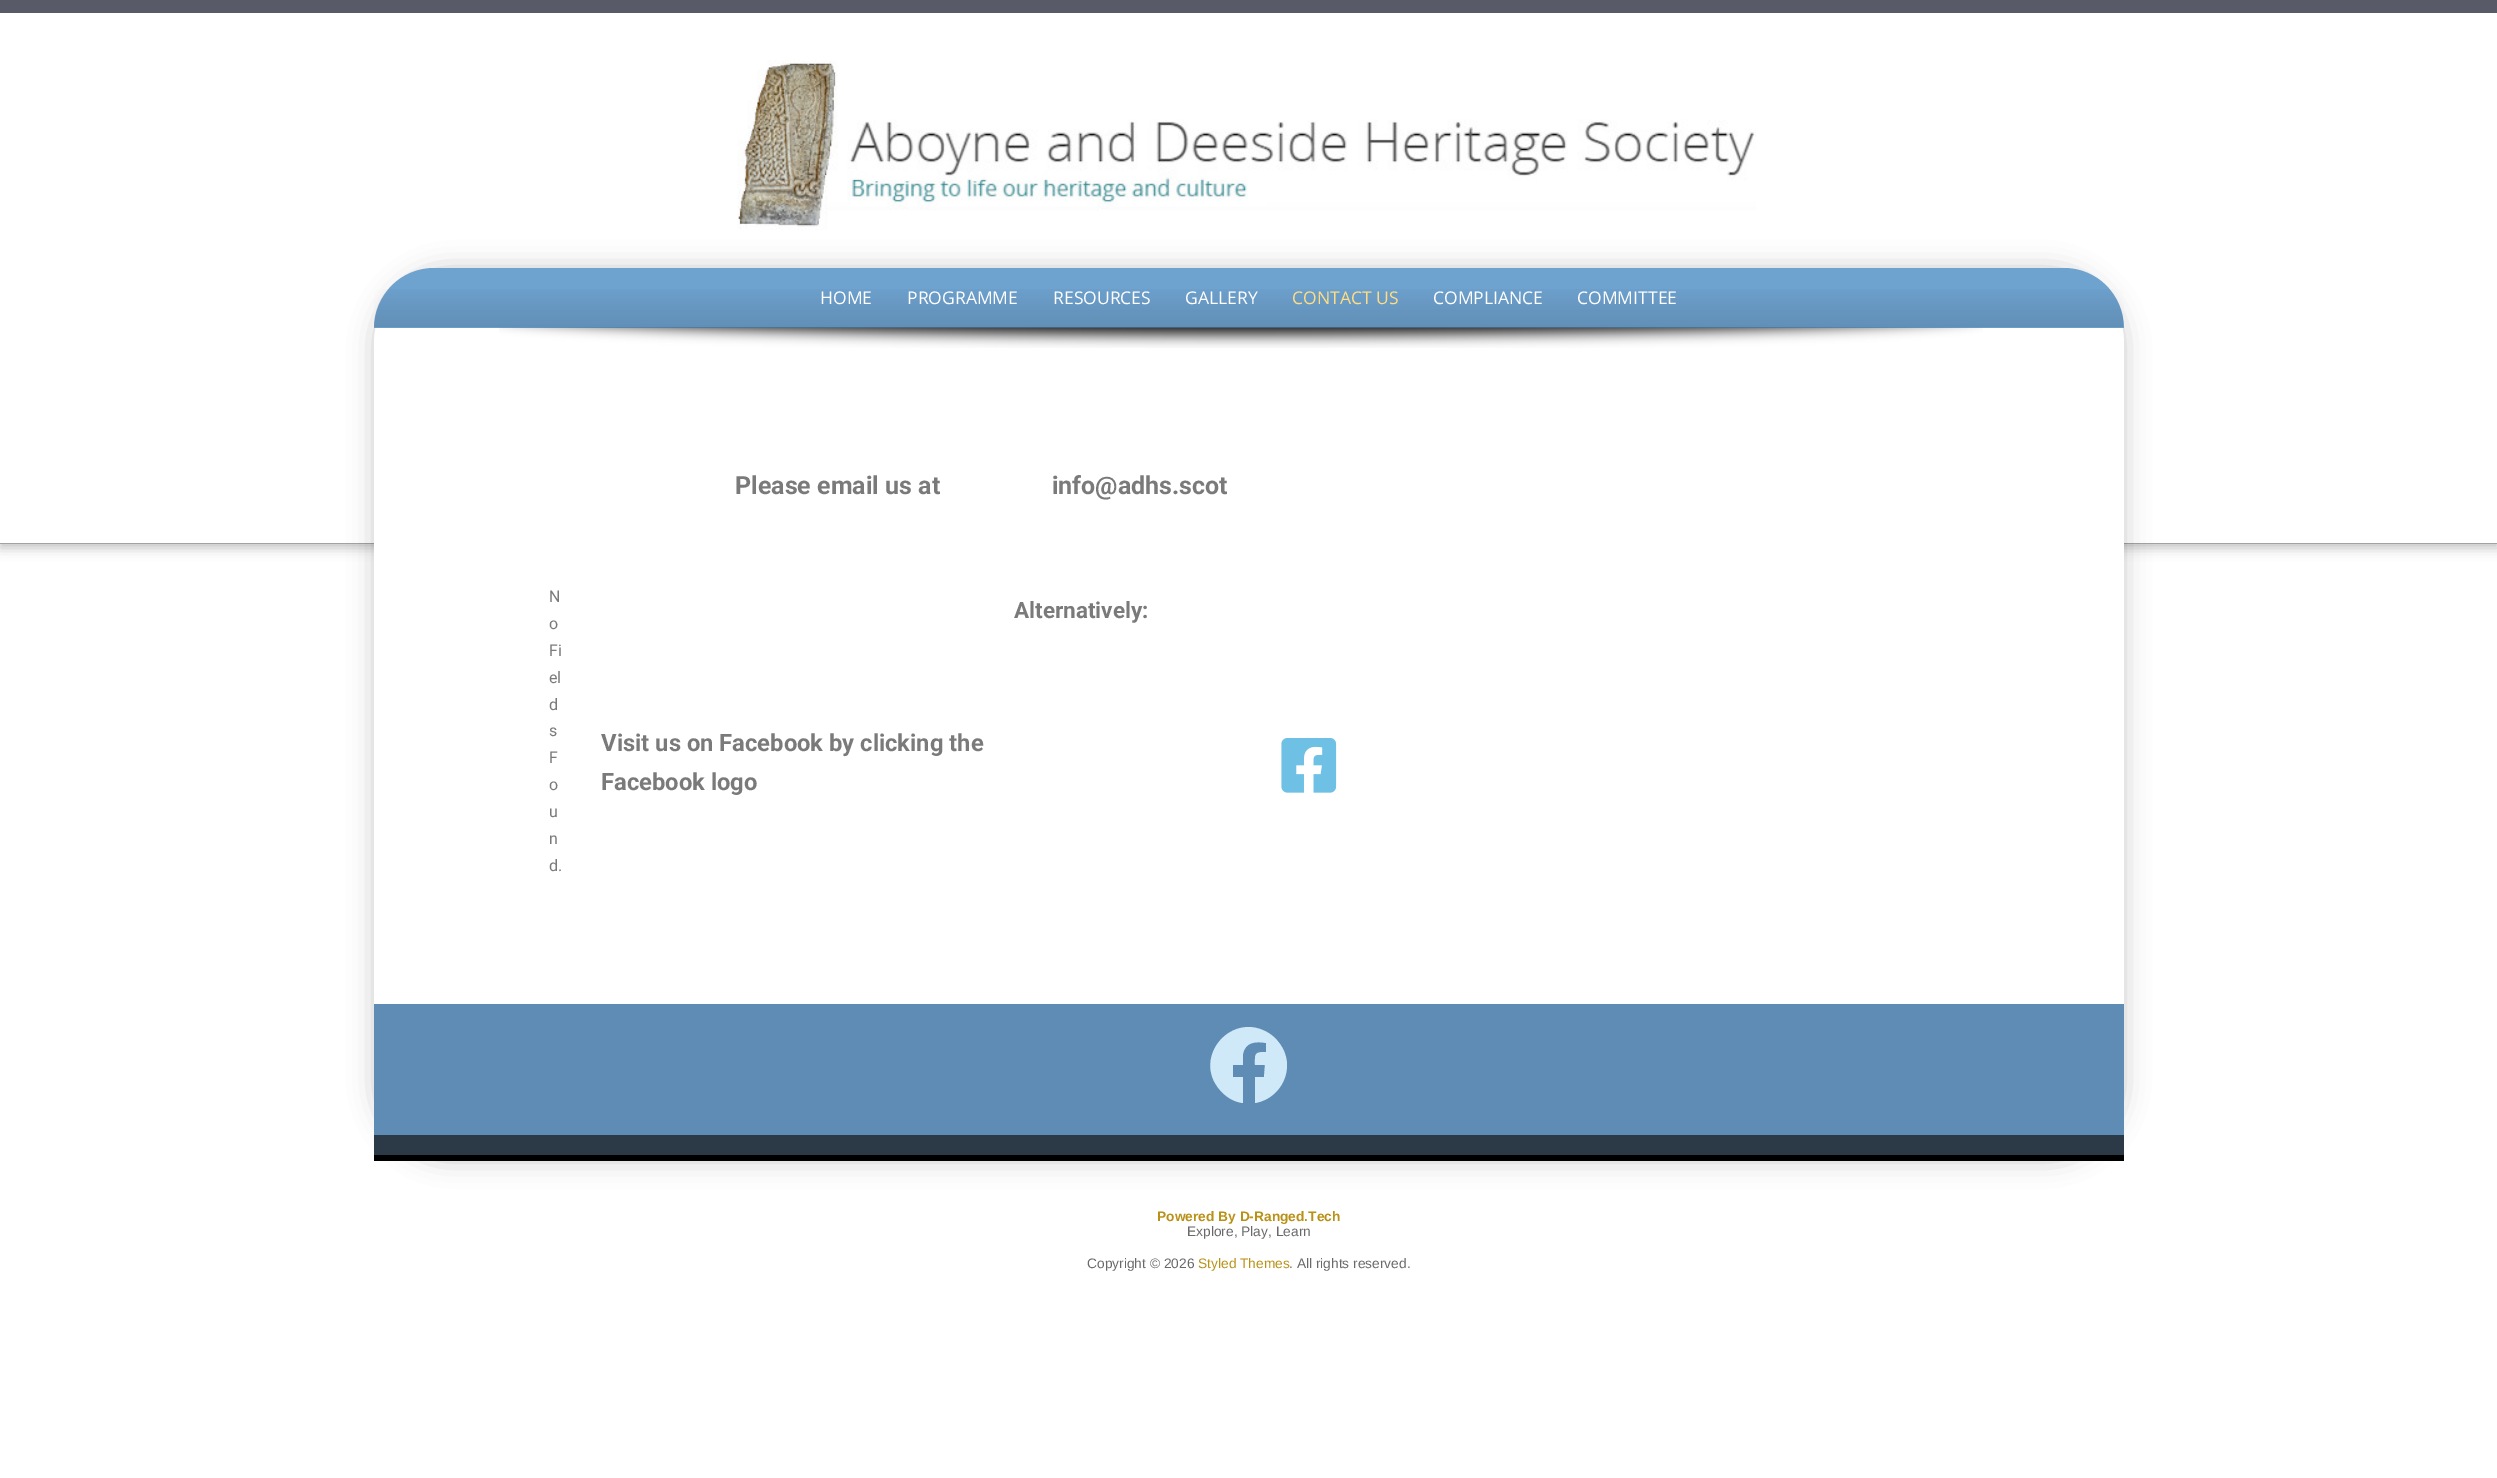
%!PS
<< /PageSize [2497 1478] /PageUsesTransparency true >> setpagedevice
/m/moveto load def
/l/rlineto load def
/c/rcurveto load def
/z/closepath load def
/f/fill load def
/C { dup -16 bitshift 255 div exch dup -8 bitshift 255 and 255 div exch 255 and 255 div setrgbcolor } def
/F { [ exch dup neg 0 0 3 -1 roll 0 0 ] selectfont } def
/T { moveto show } def
/R { rectfill } def
/A { dup .setfillconstantalpha .setstrokeconstantalpha } def
/Q { 5 dict begin { /r /h /w /y /x } { exch def } forall
  x r add y moveto x w add y 2 copy h add r arct x w add y h add x 1 index r arct
  x y h add x y r arct x y 2 copy exch w add exch r arct closepath end } def
/S { 12 dict begin { /a /b /q /h /w /y /x } { exch def } forall gsave /was 0 def
  9 -2 -9 { dup b mul 4 div /e exch def 1 sub .425 mul 2.718 exch exp 1 add a .99 .min exch div /now exch def
    1 1 now sub 1 was sub div sub A /was now def
    w h .min e 2 mul add 0 gt { x e sub y e sub w e 2 mul add h e 2 mul add
      q e add b .6 mul add w h .min 2 div e add .min 0 .max Q fill } if } for grestore end } def
/I { 5 dict begin { /h /w /y /x /name } { exch def } forall
  gsave x y translate w h scale
  w h 8 [w 0 0 h 0 0] name (r) file false 3 colorimage grestore end } def
0 .pushpdf14devicefilter
0 1478 translate 1 -1 scale
4 setmiterlimit
16#FFFFFF C
0 0 2497 1478 R
16#BFBFBF C
0 4 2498 544 0 6 1 S
16#FFFFFF C
0 13 2497 530 R
16#A2A2A2 C
0 543 2497 1 R
16#595A67 C
0 0 2497 13 R
(1.rgb) 737 60 1019 170 I
16#000000 C
374 268 1750 893 75 12.5 .2 S
16#FFFFFF C
449 268 m 1600 0 l 41.5 0 75 33.5 75 75 c 0 818 l -1750 0 l 0 -818 l 0 -41.5 33.5 -75 75 -75 c z f
16#6EA2CF C
434 268 m 1630 0 l 33 0 60 27 60 60 c -1750 0 l 0 -33 27 -60 60 -60 c z f
(2.rgb) 374 289 1750 39 I
/OpenSans-Regular 17.5 F
16#FFFFFF C
(HOME) 820 304 T
(PROGRAMME) 907 304 T
(RESOURCES) 1053 304 T
(GALLERY) 1185 304 T
16#FFDD80 C
(CONTACT US) 1292 304 T
16#FFFFFF C
(COMPLIANCE) 1433 304 T
(COMMITTEE) 1577 304 T
(3.rgb) 499 327 1484 21 I
/Roboto-Bold 25 F
16#7A7A7A C
(Please email us at                  info@adhs.scot) 735 494 T
/Roboto-Regular 16 F
(N) 549 602 T
(o) 549 629 T
(Fi) 549 656 T
(el) 549 683 T
(d) 549 710 T
(s) 549 736 T
(F) 549 763 T
(o) 549 790 T
(u) 549 817 T
(n) 549 844 T
(d.) 549 871 T
/Roboto-Bold 22.5 F
(Alternatively:) 1014 618 T
/Roboto-Bold 23.75 F
(Visit us on Facebook by clicking the) 601 751 T
(Facebook logo) 601 790 T
(4.rgb) 1281 738 56 55 I
16#5F8CB4 C
374 1004 1750 131 R
16#D0E9F9 C
1287 1065 m 0 19 -14 35 -32 38 c 0 -26 l 9 0 l 1 -12 l -10 0 l 0 -11 -1 -13 11 -13 c 0 -9 l -10 -2 -21 -1 -23 11 c 0 11 l -10 0 l 0 12 l 10 0 l 0 26 l -9 -1 -17 -6 -23 -13 c -29 -33 13 -81 50 -56 c 10 7 17 19 17 31 c z f
16#2C3946 C
374 1135 1750 20 R
16#000000 C
374 1155 1750 6 R
/LiberationSans-Bold 13.75 F
16#B99116 C
(Powered By D-Ranged.Tech) 1157 1221 T
/LiberationSans-Regular 13.75 F
16#696969 C
(Explore, Play, Learn) 1187 1236 T
(Copyright © 2026) 1087 1268 T
16#B99116 C
(Styled Themes) 1198 1268 T
16#696969 C
(. All rights reserved.) 1289 1268 T
.poppdf14devicefilter showpage
